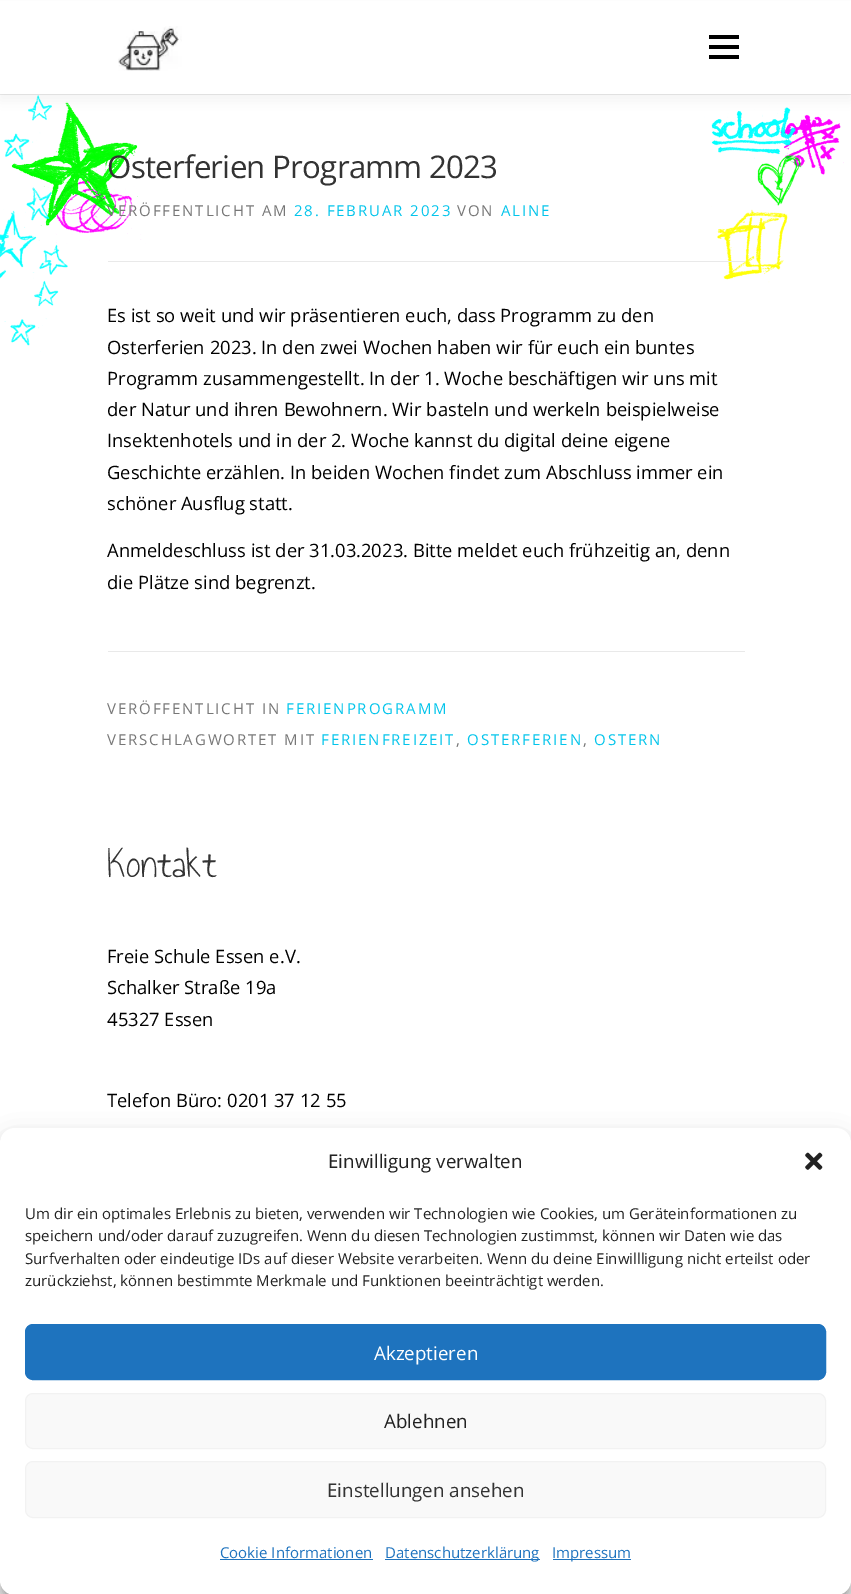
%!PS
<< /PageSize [851 1594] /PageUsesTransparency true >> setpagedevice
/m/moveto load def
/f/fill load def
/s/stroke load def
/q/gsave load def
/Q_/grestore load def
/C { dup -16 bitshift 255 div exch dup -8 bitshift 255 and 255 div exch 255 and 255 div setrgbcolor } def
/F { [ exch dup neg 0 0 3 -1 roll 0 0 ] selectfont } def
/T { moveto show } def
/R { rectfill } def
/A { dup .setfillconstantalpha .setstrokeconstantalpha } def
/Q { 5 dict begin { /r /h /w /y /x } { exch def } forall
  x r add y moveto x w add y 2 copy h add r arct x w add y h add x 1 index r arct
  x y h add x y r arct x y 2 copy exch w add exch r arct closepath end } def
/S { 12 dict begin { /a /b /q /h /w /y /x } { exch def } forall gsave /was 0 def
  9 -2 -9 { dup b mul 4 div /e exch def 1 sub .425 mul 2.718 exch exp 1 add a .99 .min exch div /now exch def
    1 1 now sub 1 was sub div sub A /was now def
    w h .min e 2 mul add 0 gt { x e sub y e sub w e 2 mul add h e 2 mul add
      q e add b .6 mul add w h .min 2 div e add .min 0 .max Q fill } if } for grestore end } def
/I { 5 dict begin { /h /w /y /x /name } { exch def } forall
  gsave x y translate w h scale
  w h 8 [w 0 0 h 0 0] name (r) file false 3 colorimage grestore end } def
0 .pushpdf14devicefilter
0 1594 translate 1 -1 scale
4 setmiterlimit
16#FFFFFF C
0 0 851 1594 R
(2.rgb) 0 95 844 257 I
16#E9E9E9 C
0 94 851 1 R
16#323232 C
0 6 851 94 0 6 .06 S
16#FFFFFF C
0 1 851 93 R
(1.rgb) 118 26 64 45 I
16#000000 C
709 45 30 4 R
709 35 30 4 R
709 55 30 4 R
/OpenSans-Regular 31.25 F
16#333333 C
107 178 m -.75 0 (Osterferien Programm 2023) ashow
16#E9E9E9 C
108 261 637 1 R
/OpenSans-Regular 15 F
16#777777 C
107 216 m 1.9 0 (VERÖFFENTLICHT AM) ashow
16#03C4EB C
294 216 m 1.9 0 (28. FEBRUAR 2023) ashow
16#777777 C
457 216 m 1.9 0 (VON) ashow
16#03C4EB C
501 216 m 1.9 0 (ALINE) ashow
/OpenSans-Regular 18.4 F
16#000000 C
(Es ist so weit und wir präsentieren euch, dass Programm zu den) 107 322 T
(Osterferien 2023. In den zwei Wochen haben wir für euch ein buntes) 107 354 T
(Programm zusammengestellt. In der 1. Woche beschäftigen wir uns mit) 107 385 T
(der Natur und ihren Bewohnern. Wir basteln und werkeln beispielweise) 107 416 T
(Insektenhotels und in der 2. Woche kannst du digital deine eigene) 107 447 T
(Geschichte erzählen. In beiden Wochen findet zum Abschluss immer ein) 107 479 T
(schöner Ausflug statt.) 107 510 T
(Anmeldeschluss ist der 31.03.2023. Bitte meldet euch frühzeitig an, denn) 107 557 T
(die Plätze sind begrenzt.) 107 589 T
16#E9E9E9 C
108 651 637 1 R
/OpenSans-Regular 15 F
16#777777 C
107 714 m 1.9 0 (VERÖFFENTLICHT IN) ashow
16#03C4EB C
286 714 m 1.9 0 (FERIENPROGRAMM) ashow
16#777777 C
107 745 m 1.9 0 (VERSCHLAGWORTET MIT) ashow
16#03C4EB C
321 745 m 1.9 0 (FERIENFREIZEIT) ashow
16#777777 C
456 745 m 1.9 0 (,) ashow
16#03C4EB C
467 745 m 1.9 0 (OSTERFERIEN) ashow
16#777777 C
583 745 m 1.9 0 (,) ashow
16#03C4EB C
594 745 m 1.9 0 (OSTERN) ashow
/AnnieUseYourTelescope-Regular 41 F
16#333333 C
(Kontakt) 107 877 T
/OpenSans-Regular 18.4 F
16#000000 C
(Freie Schule Essen e.V.) 107 963 T
(Schalker Straße 19a) 107 994 T
(45327 Essen) 107 1026 T
(Telefon Büro: 0201 37 12 55) 107 1107 T
0 1135 851 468 15 4 .23 S
0 1140 851 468 15 12.5 .19 S
16#FFFFFF C
0 1128 851 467 15 Q f
/OpenSans-Regular 18.75 F
16#222222 C
(Einwilligung verwalten) 328 1168 T
(3.rgb) 805 1152 18 18 I
/OpenSans-Regular 15 F
(Um dir ein optimales Erlebnis zu bieten, verwenden wir Technologien wie Cookies, um Geräteinformationen zu) 25 1219 T
(speichern und/oder darauf zuzugreifen. Wenn du diesen Technologien zustimmst, können wir Daten wie das) 25 1241 T
(Surfverhalten oder eindeutige IDs auf dieser Website verarbeiten. Wenn du deine Einwillligung nicht erteilst oder) 25 1264 T
(zurückziehst, können bestimmte Merkmale und Funktionen beeinträchtigt werden.) 25 1286 T
16#1E73BE C
25.5 1324.5 800 55 7.5 Q q f Q_
s
/OpenSans-Regular 18.75 F
16#FFFFFF C
(Akzeptieren) 374 1360 T
16#F9F9F9 C
25.5 1393.5 800 55 7.5 Q q f Q_
16#F2F2F2 C
s
16#222222 C
(Ablehnen) 384 1428 T
16#F9F9F9 C
25.5 1461.5 800 56 7.5 Q q f Q_
16#F2F2F2 C
s
16#333333 C
(Einstellungen ansehen) 327 1497 T
/OpenSans-Regular 15 F
16#1E73BE C
(Cookie Informationen) 220 1558 T
220 1559 153 1 R
385 1559 155 1 R
(Datenschutzerklärung) 385 1558 T
553 1559 78 1 R
(Impressum) 552 1558 T
.poppdf14devicefilter showpage
